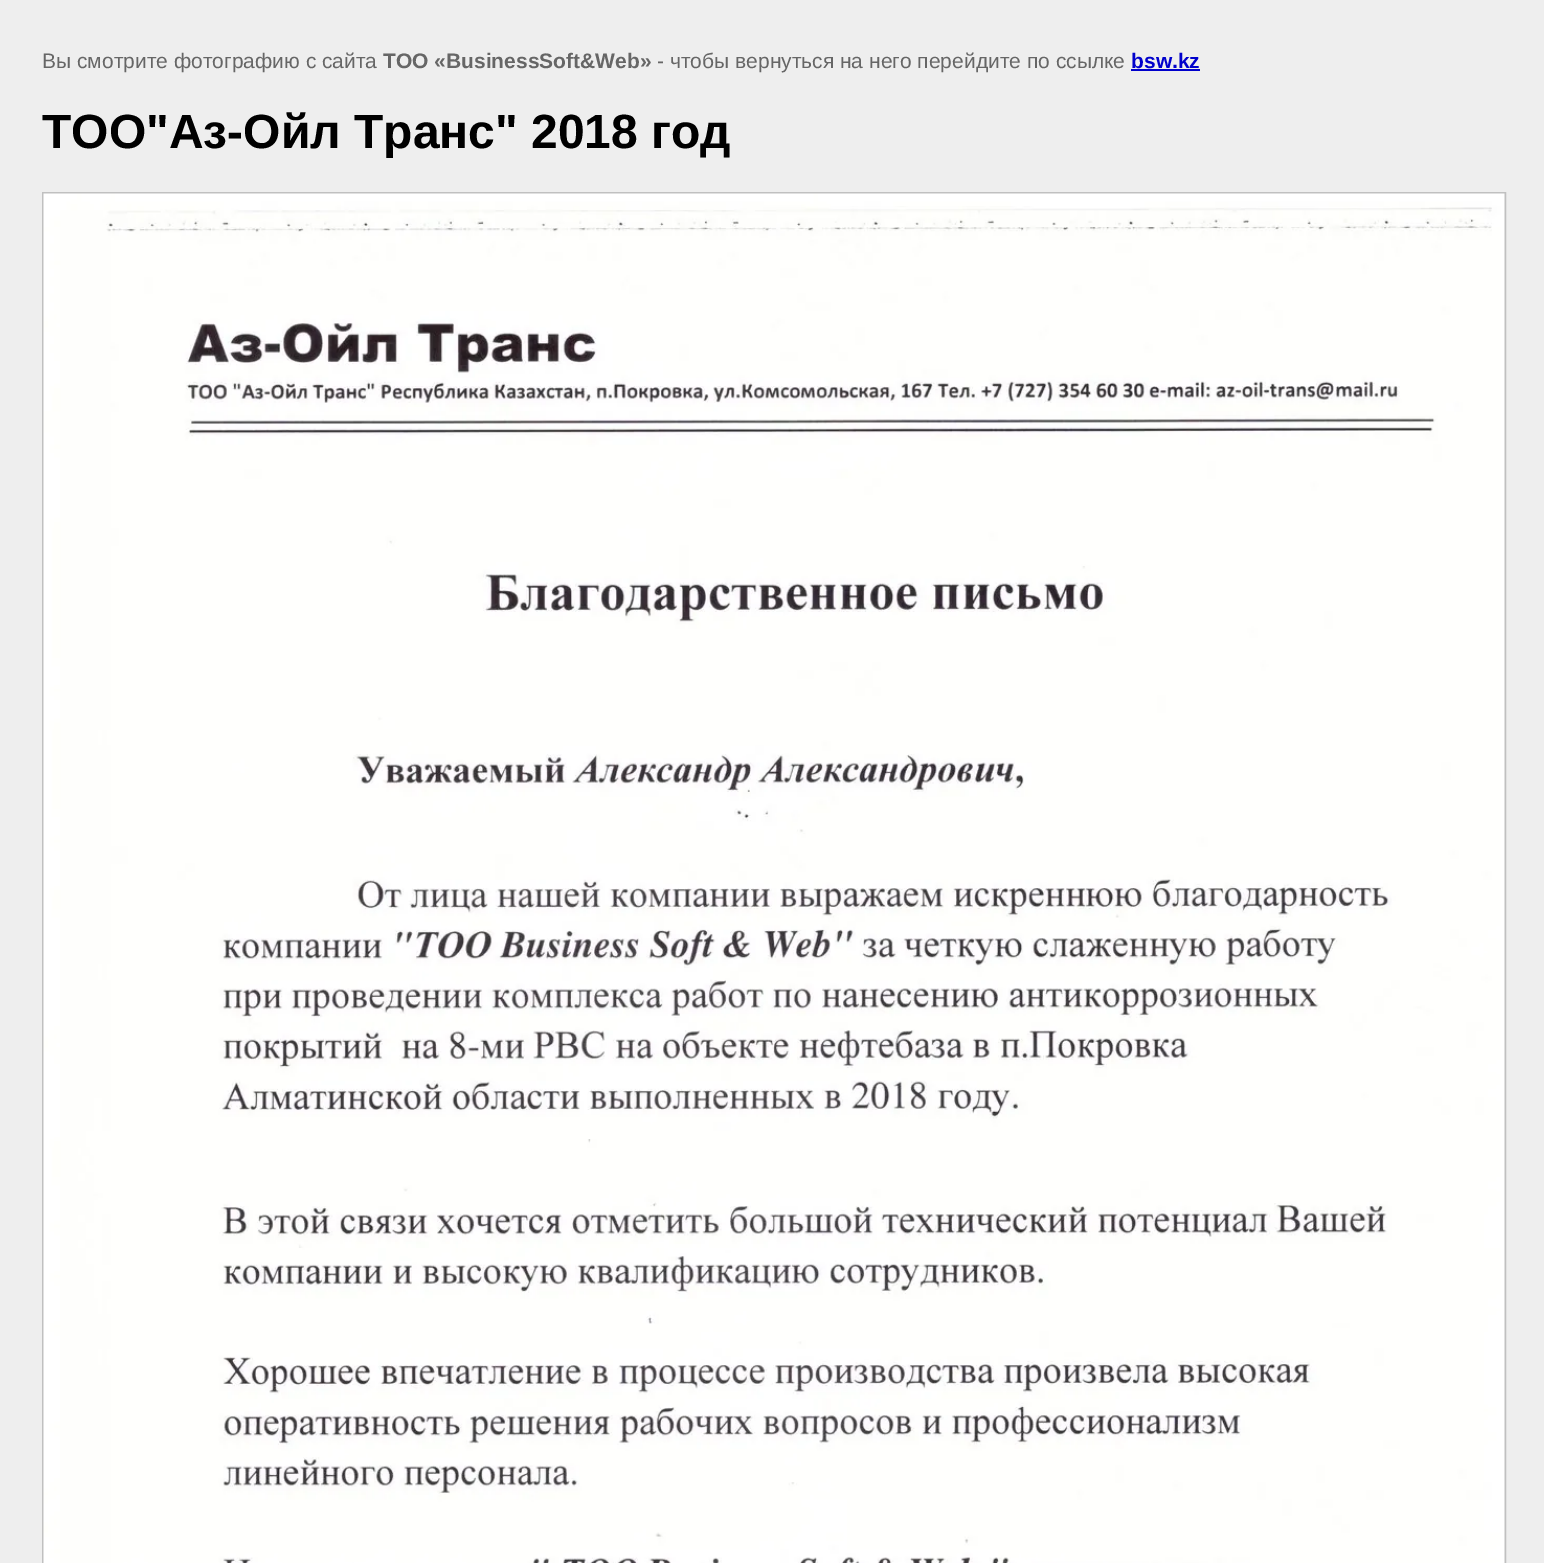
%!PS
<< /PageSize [1544 1563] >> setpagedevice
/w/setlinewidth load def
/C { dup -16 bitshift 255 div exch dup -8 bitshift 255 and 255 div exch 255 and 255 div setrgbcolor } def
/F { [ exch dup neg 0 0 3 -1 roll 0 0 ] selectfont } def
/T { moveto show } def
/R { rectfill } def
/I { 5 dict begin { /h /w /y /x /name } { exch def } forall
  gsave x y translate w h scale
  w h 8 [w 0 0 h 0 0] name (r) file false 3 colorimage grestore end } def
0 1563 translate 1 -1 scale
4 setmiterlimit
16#EEEEEE C
0 0 1544 1563 R
/LiberationSans-Regular 21 F
16#666666 C
(Вы смотрите фотографию с сайта) 42 68 T
/LiberationSans-Bold 21 F
(ТОО «BusinessSoft&Web») 383 68 T
/LiberationSans-Regular 21 F
(- чтобы вернуться на него перейдите по ссылке) 657 68 T
/LiberationSans-Bold 21 F
16#0000CC C
(bsw.kz) 1131 68 T
1131 69 69 2 R
/LiberationSans-Bold 48 F
16#000000 C
(ТОО"Аз-Ойл Транс" 2018 год) 42 148 T
16#C0C0C0 C
2 w
43 193 1462 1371 rectstroke
(1.rgb) 43 193 1462 1370 I
showpage
